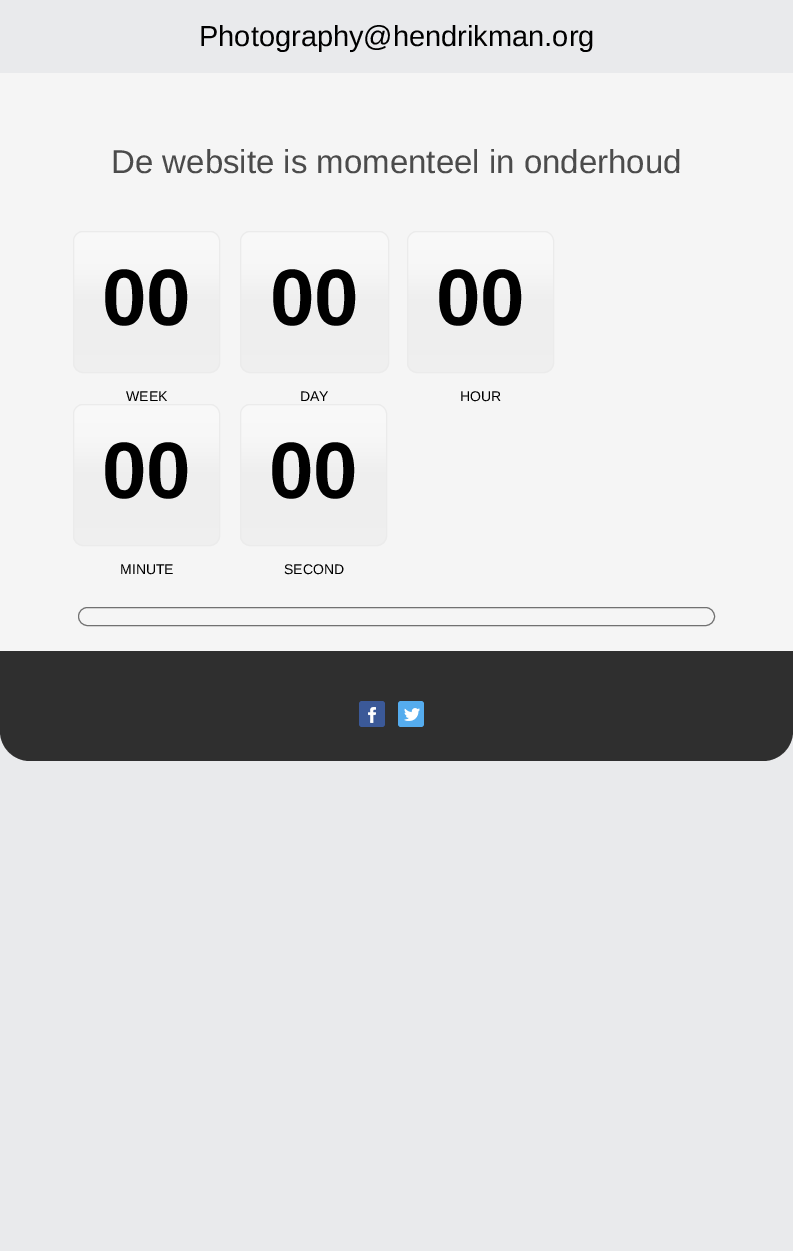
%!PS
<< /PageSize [793 1251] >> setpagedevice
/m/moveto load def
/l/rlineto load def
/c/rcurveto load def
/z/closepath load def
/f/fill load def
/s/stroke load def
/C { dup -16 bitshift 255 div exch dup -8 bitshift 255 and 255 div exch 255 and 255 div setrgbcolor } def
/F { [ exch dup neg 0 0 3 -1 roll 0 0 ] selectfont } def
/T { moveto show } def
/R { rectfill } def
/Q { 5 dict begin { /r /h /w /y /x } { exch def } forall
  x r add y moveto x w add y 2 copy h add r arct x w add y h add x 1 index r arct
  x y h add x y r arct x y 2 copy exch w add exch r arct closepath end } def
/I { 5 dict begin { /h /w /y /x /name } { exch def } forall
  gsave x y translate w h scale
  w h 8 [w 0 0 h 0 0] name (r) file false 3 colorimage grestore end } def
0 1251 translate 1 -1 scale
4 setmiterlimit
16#E9EAEC C
0 0 793 1251 R
/LiberationSans-Regular 29 F
16#000000 C
(Photography@hendrikman.org) 199 46 T
16#F5F5F5 C
0 73 793 578 R
/LiberationSans-Regular 33 F
16#4B4B4B C
(De website is momenteel in onderhoud) 111 173 T
(1.rgb) 73 231 147 141 I
16#EBEBEB C
73.5 231.5 146 141 9.5 Q s
/LiberationSans-Bold 80 F
16#000000 C
(00) 102 325 T
/LiberationSans-Regular 14 F
(WEEK) 126 401 T
(2.rgb) 240 231 149 141 I
16#EBEBEB C
240.5 231.5 148 141 9.5 Q s
/LiberationSans-Bold 80 F
16#000000 C
(00) 270 325 T
/LiberationSans-Regular 14 F
(DAY) 300 401 T
(1.rgb) 407 231 147 141 I
16#EBEBEB C
407.5 231.5 146 141 9.5 Q s
/LiberationSans-Bold 80 F
16#000000 C
(00) 436 325 T
/LiberationSans-Regular 14 F
(HOUR) 460 401 T
(1.rgb) 73 404 147 141 I
16#EBEBEB C
73.5 404.5 146 141 9.5 Q s
/LiberationSans-Bold 80 F
16#000000 C
(00) 102 498 T
/LiberationSans-Regular 14 F
(MINUTE) 120 574 T
(1.rgb) 240 404 147 141 I
16#EBEBEB C
240.5 404.5 146 141 9.5 Q s
/LiberationSans-Bold 80 F
16#000000 C
(00) 269 498 T
/LiberationSans-Regular 14 F
(SECOND) 284 574 T
16#717171 C
78.5 607.5 636 18 9 Q s
16#2F2F2F C
0 651 m 793 0 l 0 80 l 0 16.5 -13.5 30 -30 30 c -733 0 l -16.5 0 -30 -13.5 -30 -30 c z f
16#3B5998 C
359 701 26 26 3 Q f
(3.rgb) 368 707 8 16 I
16#55ACEE C
398 701 26 26 3 Q f
(4.rgb) 404 708 16 13 I
showpage
